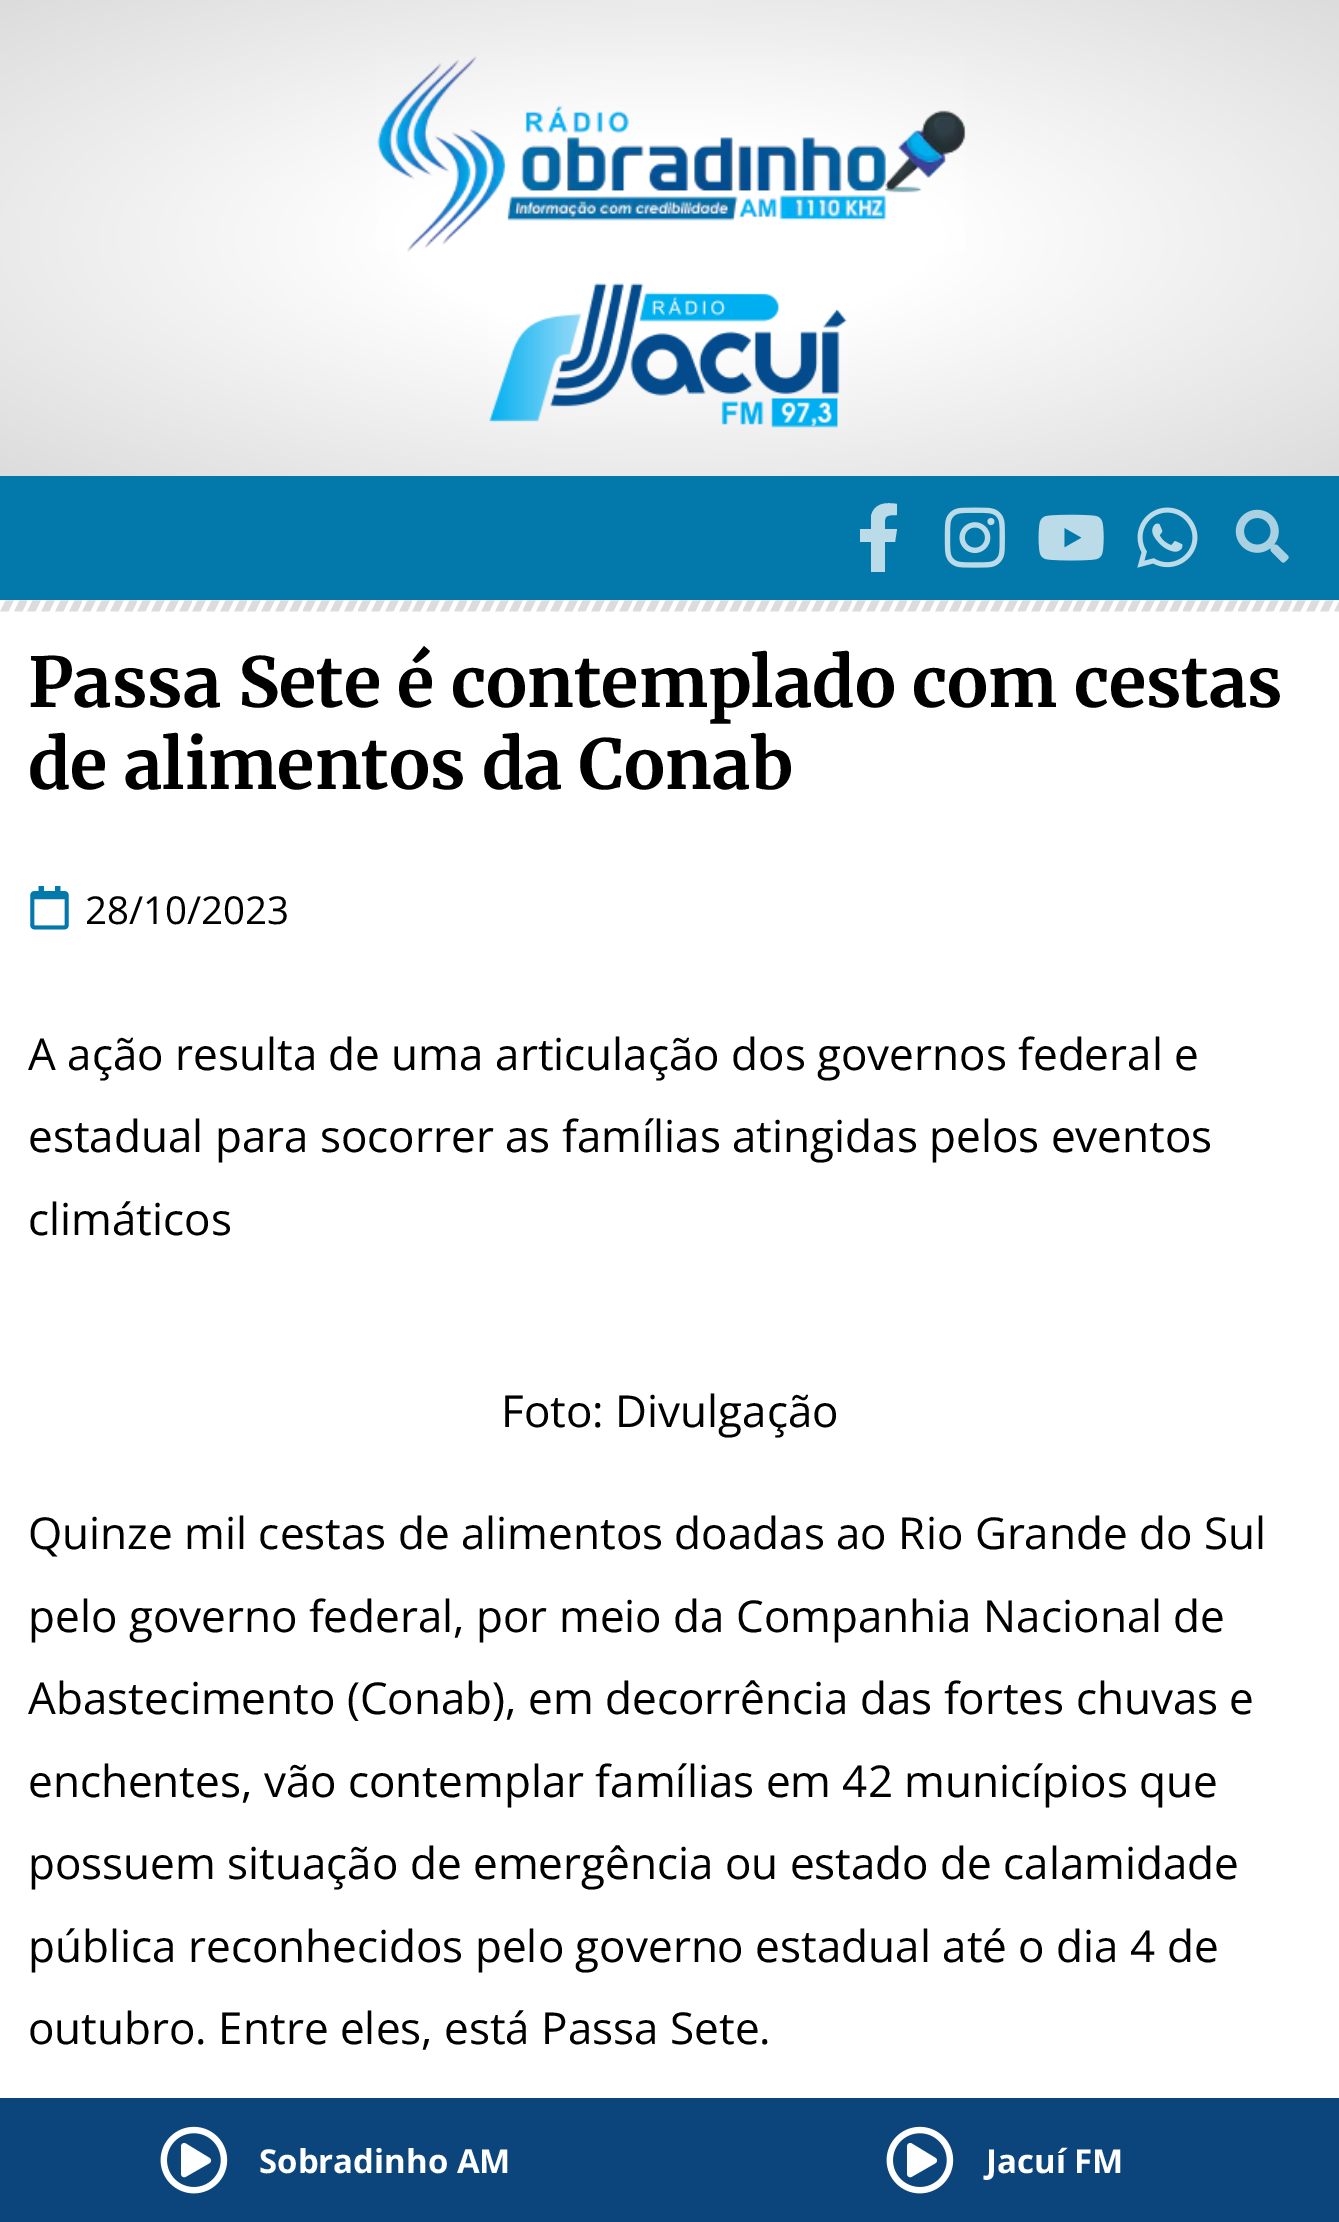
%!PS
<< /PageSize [1339 2222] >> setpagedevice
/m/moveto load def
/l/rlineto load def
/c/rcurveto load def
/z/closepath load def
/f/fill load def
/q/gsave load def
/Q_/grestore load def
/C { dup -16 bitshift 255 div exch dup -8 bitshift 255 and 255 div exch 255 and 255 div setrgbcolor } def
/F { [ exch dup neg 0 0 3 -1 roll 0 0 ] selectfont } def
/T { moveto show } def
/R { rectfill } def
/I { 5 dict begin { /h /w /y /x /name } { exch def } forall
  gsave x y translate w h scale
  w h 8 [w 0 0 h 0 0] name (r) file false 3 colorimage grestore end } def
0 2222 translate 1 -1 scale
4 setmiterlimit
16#FFFFFF C
0 0 1339 2222 R
q 0 0 m 1339 0 l 0 476 l -1339 0 l z clip newpath 670 238 translate 947 336 scale
<< /ShadingType 3 /ColorSpace /DeviceRGB /Coords [0 0 0 0 0 1] /Extend [true true] /Function << /FunctionType 3 /Domain [0 1] /Functions [<< /FunctionType 2 /Domain [0 1] /C0 [1 1 1] /C1 [1 1 1] /N 1 >> << /FunctionType 2 /Domain [0 1] /C0 [1 1 1] /C1 [.863 .863 .863] /N 1 >>] /Bounds [.28] /Encode [0 1 0 1] >> >> shfill Q_
(1.rgb) 377 56 589 196 I
(2.rgb) 489 283 358 145 I
16#0379AB C
0 476 1339 124 R
16#BBDBE8 C
895 542 m 2 -13 l -12 0 l 0 -12 -2 -14 12 -14 c 0 -11 l -11 -2 -23 -1 -26 12 c 0 13 l -11 0 l 0 13 l 11 0 l 0 30 l 14 0 l 0 -30 l z f
(3.rgb) 944 507 61 61 I
(4.rgb) 1038 514 66 47 I
(5.rgb) 1137 507 61 61 I
(6.rgb) 1235 509 54 54 I
(7.rgb) 0 600 1339 12 I
/Merriweather-Bold 68.75 F
16#000000 C
(Passa Sete é contemplado com cestas) 28 707 T
(de alimentos da Conab) 28 789 T
(8.rgb) 30 886 39 44 I
/OpenSans-Regular 38.5 F
(28/10/2023) 85 924 T
/OpenSans-Regular 44 F
(A ação resulta de uma articulação dos governos federal e) 28 1070 T
(estadual para socorrer as famílias atingidas pelos eventos) 28 1152 T
(climáticos) 28 1235 T
(Foto: Divulgação) 501 1427 T
(Quinze mil cestas de alimentos doadas ao Rio Grande do Sul) 28 1549 T
(pelo governo federal, por meio da Companhia Nacional de) 28 1632 T
(Abastecimento \(Conab\), em decorrência das fortes chuvas e) 28 1714 T
(enchentes, vão contemplar famílias em 42 municípios que) 28 1797 T
(possuem situação de emergência ou estado de calamidade) 28 1879 T
(pública reconhecidos pelo governo estadual até o dia 4 de) 28 1962 T
(outubro. Entre eles, está Passa Sete.) 28 2044 T
16#0C447C C
0 2098 1339 124 R
(9.rgb) 160 2126 68 68 I
/OpenSans-Bold 33 F
16#FFFFFF C
(Sobradinho AM) 259 2173 T
(9.rgb) 886 2126 68 68 I
(Jacuí FM) 986 2173 T
showpage
